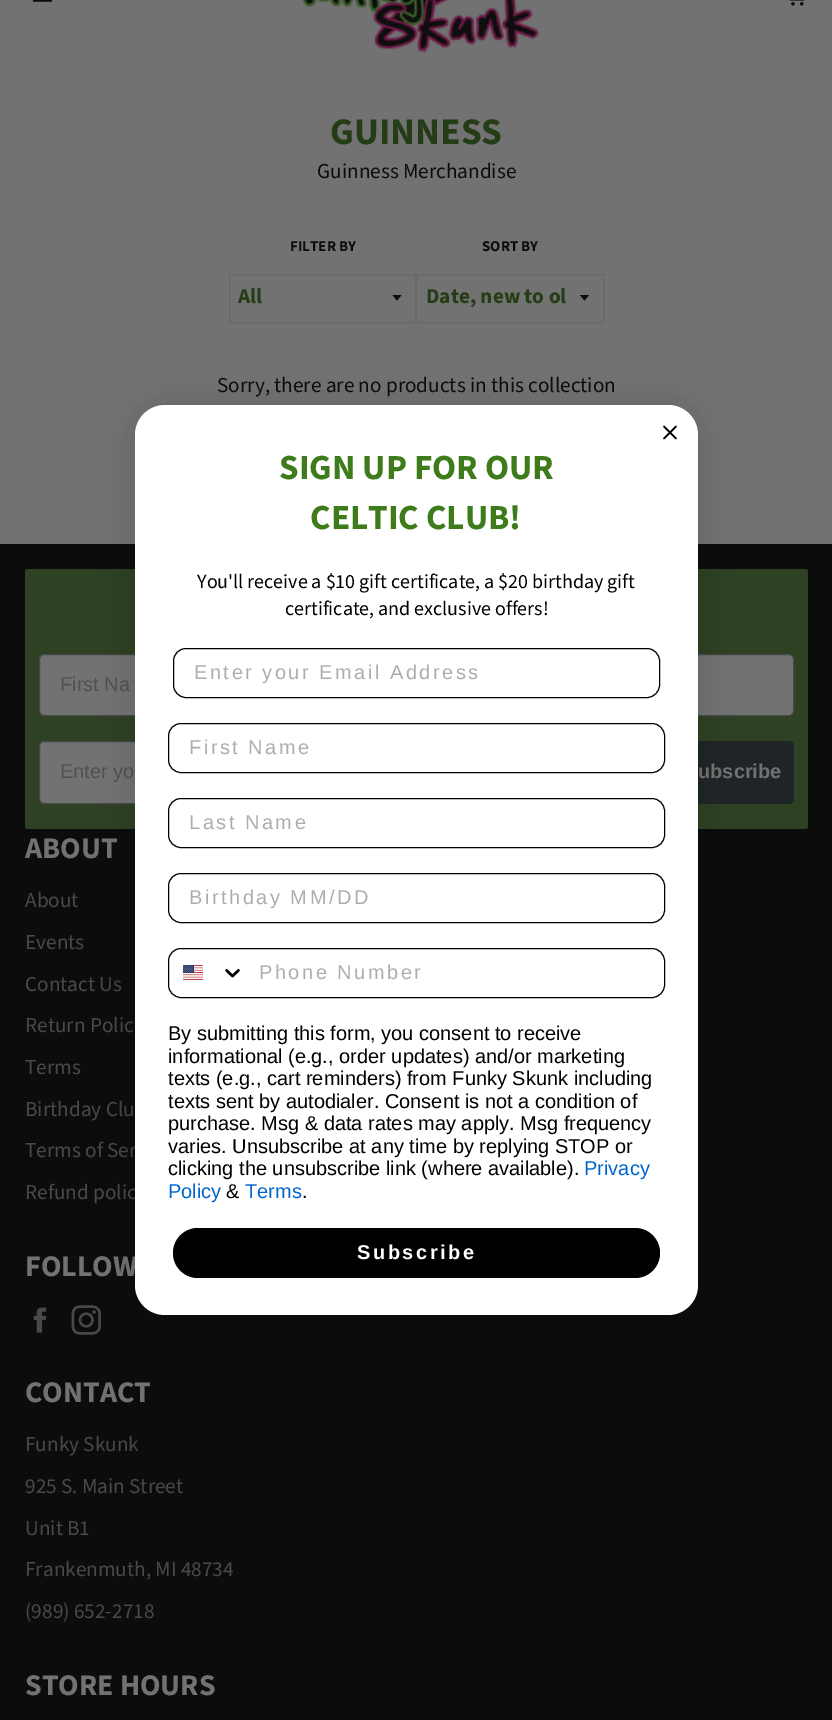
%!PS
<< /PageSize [832 1720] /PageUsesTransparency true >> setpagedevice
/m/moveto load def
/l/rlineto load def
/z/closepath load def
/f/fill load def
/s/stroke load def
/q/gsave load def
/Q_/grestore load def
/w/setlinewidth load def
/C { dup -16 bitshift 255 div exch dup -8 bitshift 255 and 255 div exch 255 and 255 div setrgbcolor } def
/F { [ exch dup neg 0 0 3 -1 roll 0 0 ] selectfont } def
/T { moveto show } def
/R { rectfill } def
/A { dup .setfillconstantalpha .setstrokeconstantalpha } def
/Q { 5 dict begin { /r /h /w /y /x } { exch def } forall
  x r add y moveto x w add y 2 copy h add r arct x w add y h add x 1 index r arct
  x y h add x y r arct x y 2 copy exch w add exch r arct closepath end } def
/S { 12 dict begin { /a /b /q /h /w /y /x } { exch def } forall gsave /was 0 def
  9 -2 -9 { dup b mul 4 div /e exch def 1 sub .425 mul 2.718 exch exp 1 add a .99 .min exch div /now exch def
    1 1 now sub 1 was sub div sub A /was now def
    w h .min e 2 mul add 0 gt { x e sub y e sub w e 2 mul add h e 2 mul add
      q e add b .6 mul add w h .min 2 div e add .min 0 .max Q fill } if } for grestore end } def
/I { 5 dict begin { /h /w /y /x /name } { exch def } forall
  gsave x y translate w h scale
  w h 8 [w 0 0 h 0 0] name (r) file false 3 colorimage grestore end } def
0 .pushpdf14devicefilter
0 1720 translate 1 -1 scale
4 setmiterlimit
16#727272 C
0 0 832 1720 R
(1.rgb) 32 0 21 2 I
(2.rgb) 301 0 240 54 I
(3.rgb) 789 0 16 6 I
/SourceSansPro-Bold 37.5 F
16#253D16 C
(GUINNESS) 330 144 T
/SourceSansPro-Regular 21.25 F
16#0C0C0C C
(Guinness Merchandise) 317 178 T
/SourceSansPro-Bold 15 F
(FILTER BY) 290 251 T
392.5 295 m 4.5 5.5 l 4.5 -5.5 l z f
16#686868 C
229.5 274.5 186 48 rectstroke
/SourceSansPro-Bold 21.25 F
16#253D16 C
(All) 238 303 T
/SourceSansPro-Bold 15 F
16#0C0C0C C
(SORT BY) 482 251 T
580 295 m 4.5 5.5 l 4.5 -5.5 l z f
16#686868 C
416.5 274.5 187 48 rectstroke
/SourceSansPro-Bold 21.25 F
16#253D16 C
(Date, new to ol) 426 303 T
/SourceSansPro-Regular 21.25 F
16#0C0C0C C
(Sorry, there are no products in this collection) 217 392 T
0 544 832 1176 R
16#2E4123 C
25 569 783 260 2.5 Q f
16#727272 C
39.5 654.5 369 61 4.5 Q q f Q_
16#474848 C
s
/LiberationSans-Regular 20 F
16#515151 C
(First Na) 60 691 T
16#727272 C
424.5 654.5 369 61 4.5 Q q f Q_
16#474848 C
s
16#727272 C
39.5 741.5 618 62 4.5 Q q f Q_
16#474848 C
s
16#515151 C
(Enter yo) 60 778 T
16#1F2427 C
673 741 121 63 5 Q f
/LiberationSans-Bold 20 F
16#727272 C
(ubscribe) 698 778 T
/SourceSansPro-Bold 30 F
(ABOUT) 25 858 T
/SourceSansPro-Regular 21.25 F
16#494949 C
(About) 25 907 T
(Events) 25 949 T
(Contact Us) 25 991 T
(Return Polic) 25 1032 T
(Terms) 25 1074 T
(Birthday Clu) 25 1116 T
(Terms of Ser) 25 1157 T
(Refund polic) 25 1199 T
/SourceSansPro-Bold 30 F
16#727272 C
(FOLLOW) 25 1276 T
(4.rgb) 33 1307 14 26 I
(5.rgb) 71 1305 30 30 I
(CONTACT) 25 1402 T
/SourceSansPro-Regular 21.25 F
16#494949 C
(Funky Skunk) 25 1451 T
(925 S. Main Street) 25 1493 T
(Unit B1) 25 1535 T
(Frankenmuth, MI 48734) 25 1576 T
(\(989\) 652-2718) 25 1618 T
/SourceSansPro-Bold 30 F
16#727272 C
(STORE HOURS) 25 1695 T
16#000000 C
135 405 563 910 30 19 .15 S
16#FFFFFF C
135 405 563 910 30 Q f
16#000000 C
1.5 w
1 setlinecap
1 setlinejoin
664 426.5 m 12 12 l 664 438.5 m 12 -12 l z s
/SourceSansPro-Bold 35.25 F
16#3E7B1A C
(SIGN UP FOR OUR) 279 479 T
(CELTIC CLUB!) 310 529 T
/SourceSansPro-Regular 20 F
16#000000 C
(You'll receive a $10 gift certificate, a $20 birthday gift) 197 588 T
(certificate, and exclusive offers!) 285 615 T
1 w
0 setlinecap
0 setlinejoin
173.5 648.5 486 49 12.5 Q s
/LiberationSans-Regular 20 F
16#ADADAD C
194 679 m 2.5 0 (Enter your Email Address) ashow
16#000000 C
168.5 723.5 496 49 12.5 Q s
16#ADADAD C
189 754 m 2.5 0 (First Name) ashow
16#000000 C
168.5 798.5 496 49 12.5 Q s
16#ADADAD C
189 829 m 2.5 0 (Last Name) ashow
16#000000 C
168.5 873.5 496 49 12.5 Q s
16#ADADAD C
189 904 m 2.5 0 (Birthday MM/DD) ashow
16#000000 C
168.5 948.5 496 49 12.5 Q s
(6.rgb) 183 965 20 15 I
(7.rgb) 225 969 15 9 I
16#ADADAD C
259 979 m 2.5 0 (Phone Number) ashow
16#000000 C
(By submitting this form, you consent to receive) 168 1040 T
(informational \(e.g., order updates\) and/or marketing) 168 1063 T
(texts \(e.g., cart reminders\) from Funky Skunk including) 168 1085 T
(texts sent by autodialer. Consent is not a condition of) 168 1108 T
(purchase. Msg & data rates may apply. Msg frequency) 168 1130 T
(varies. Unsubscribe at any time by replying STOP or) 168 1153 T
(clicking the unsubscribe link \(where available\).) 168 1175 T
16#0066CC C
(Privacy) 584 1175 T
(Policy) 168 1198 T
16#000000 C
(&) 226 1198 T
16#0066CC C
(Terms) 245 1198 T
16#000000 C
(.) 302 1198 T
173 1228 487 50 25 Q f
/LiberationSans-Bold 20 F
16#FFFFFF C
357 1259 m 2.5 0 (Subscribe) ashow
.poppdf14devicefilter showpage
